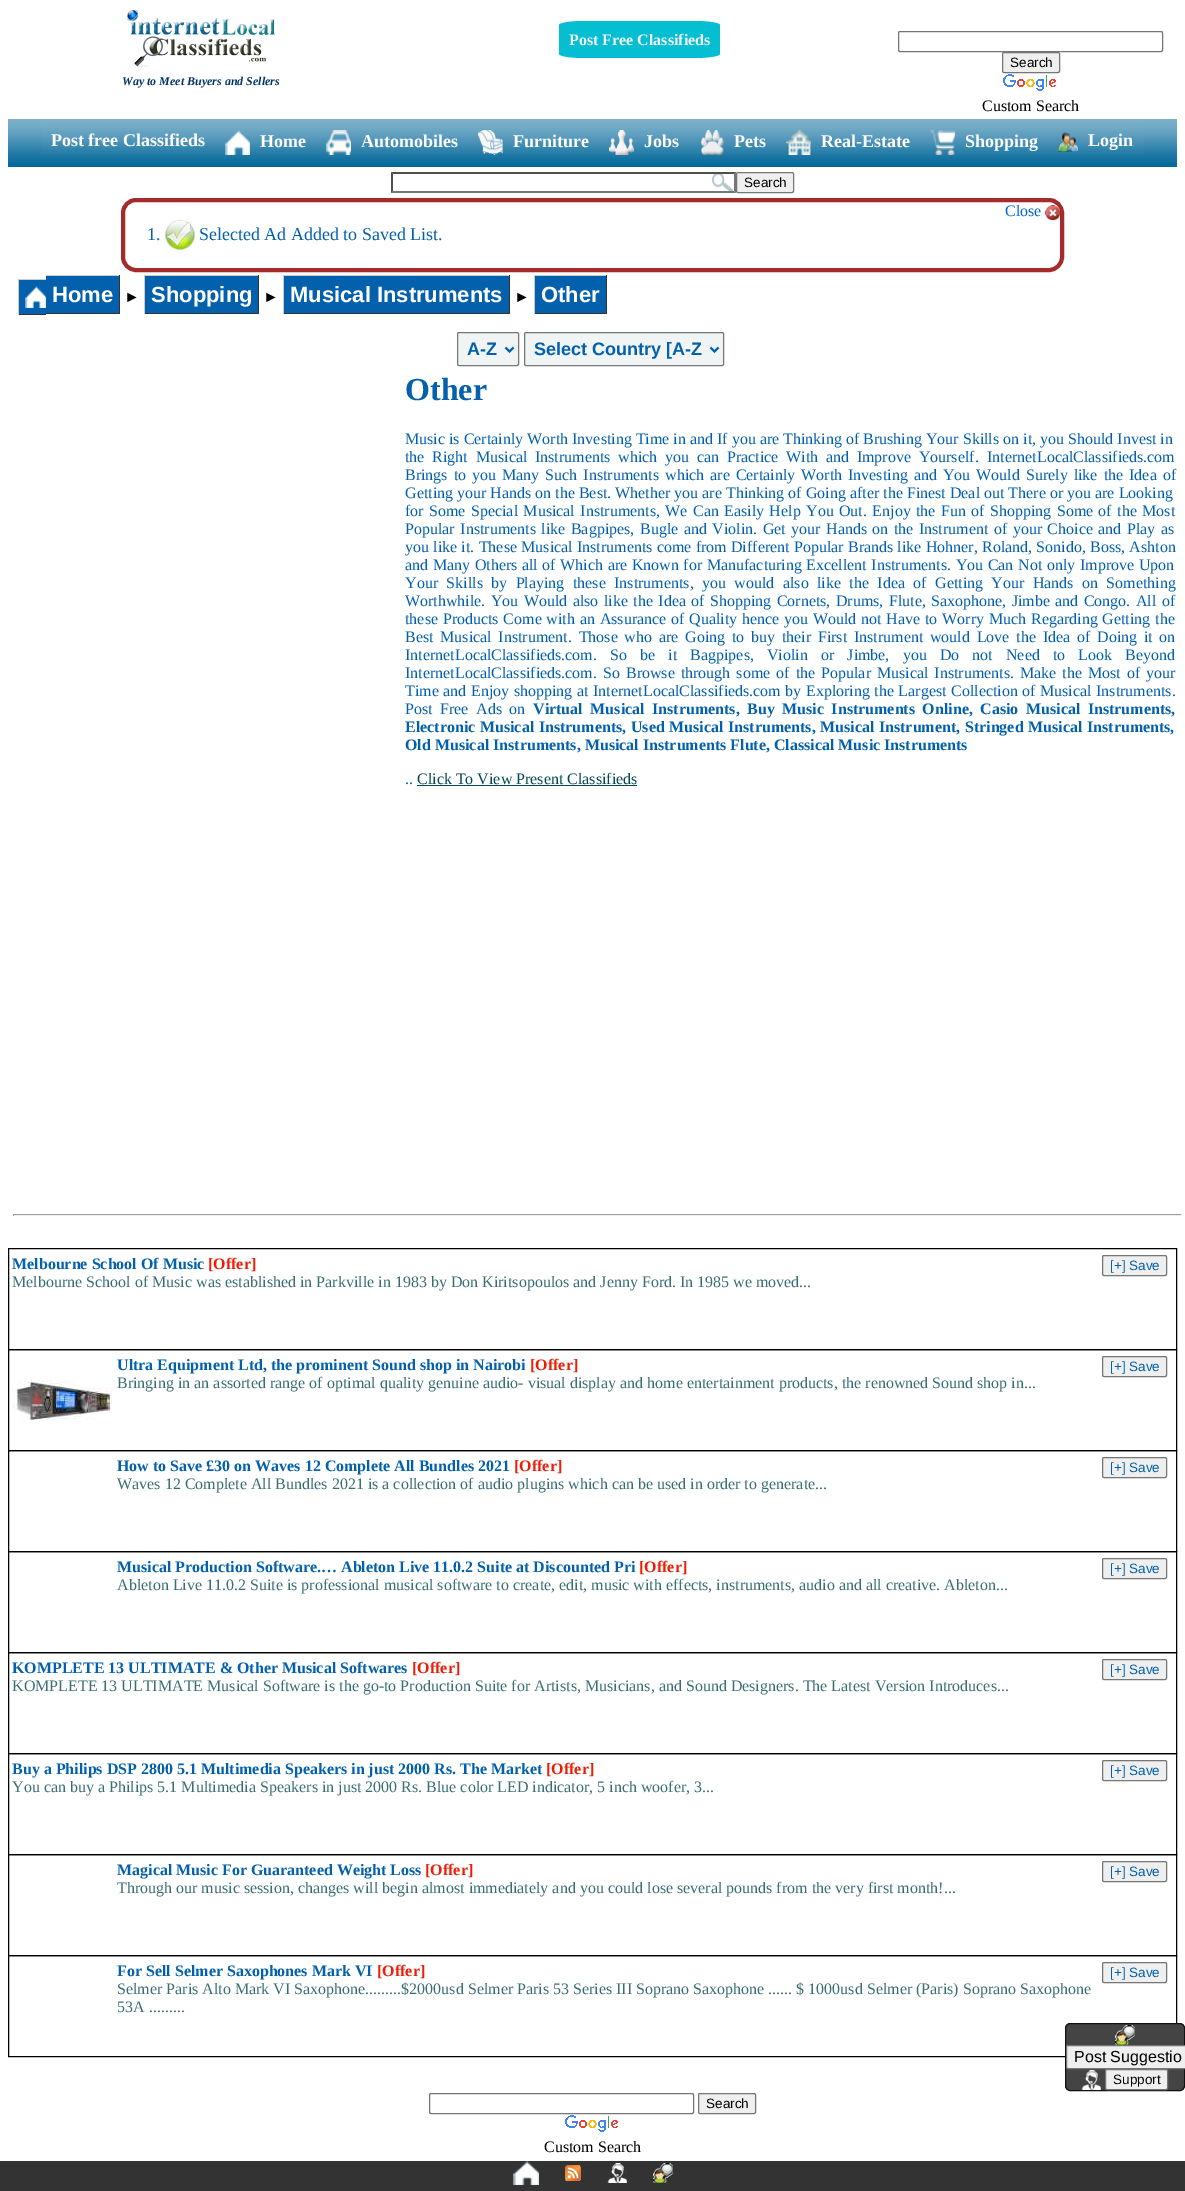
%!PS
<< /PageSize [1185 2191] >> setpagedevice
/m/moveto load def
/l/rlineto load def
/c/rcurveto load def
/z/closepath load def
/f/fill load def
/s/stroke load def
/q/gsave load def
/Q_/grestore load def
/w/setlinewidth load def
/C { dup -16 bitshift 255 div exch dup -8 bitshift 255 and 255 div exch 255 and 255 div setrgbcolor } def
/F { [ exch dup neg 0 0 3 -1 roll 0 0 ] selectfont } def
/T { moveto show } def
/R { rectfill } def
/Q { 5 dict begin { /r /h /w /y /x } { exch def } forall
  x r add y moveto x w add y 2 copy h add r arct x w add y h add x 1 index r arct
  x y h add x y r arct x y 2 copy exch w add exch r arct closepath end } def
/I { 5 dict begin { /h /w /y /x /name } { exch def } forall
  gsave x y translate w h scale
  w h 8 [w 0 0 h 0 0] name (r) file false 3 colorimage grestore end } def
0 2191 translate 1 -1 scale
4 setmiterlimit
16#FFFFFF C
0 0 1185 2191 R
16#05BED2 C
584 21 m 111 0 l 14 0 25 2 25 4 c 0 29 l 0 2 -11 4 -25 4 c -111 0 l -14 0 -25 -2 -25 -4 c 0 -29 l 0 -2 11 -4 25 -4 c z f
/LiberationSerif-Bold 16 F
16#F1F4F5 C
(Post Free Classifieds) 569 45 T
(1.rgb) 126 9 150 58 I
/LiberationSerif-BoldItalic 12 F
16#003366 C
(Way to Meet Buyers and Sellers) 122 85 T
16#767676 C
898.5 31.5 264 20 1.5 Q s
16#EFEFEF C
1002.5 52.5 57 20 1.5 Q q f Q_
16#767676 C
s
/LiberationSans-Regular 13.5 F
16#000000 C
(Search) 1010 67 T
(2.rgb) 1003 74 53 17 I
/LiberationSerif-Regular 16 F
(Custom Search) 982 111 T
(3.rgb) 8 119 1169 48 I
(4.rgb) 41 127 174 27 I
/LiberationSerif-Bold 18 F
16#FFFFFF C
(Post free Classifieds) 51 146 T
(5.rgb) 215 127 101 27 I
(6.rgb) 225 130 25 25 I
(Home) 260 147 T
(7.rgb) 316 127 152 27 I
(8.rgb) 326 130 25 25 I
(Automobiles) 361 147 T
(9.rgb) 468 127 131 27 I
(10.rgb) 478 130 25 25 I
(Furniture) 513 147 T
(11.rgb) 599 127 90 27 I
(12.rgb) 609 130 25 25 I
(Jobs) 644 147 T
(13.rgb) 689 127 87 27 I
(14.rgb) 701 130 23 25 I
(Pets) 734 147 T
(15.rgb) 776 127 144 27 I
(16.rgb) 786 130 25 25 I
(Real-Estate) 821 147 T
(17.rgb) 920 127 128 27 I
(18.rgb) 930 130 25 25 I
(Shopping) 965 147 T
(19.rgb) 1048 127 96 27 I
(20.rgb) 1058 132 20 20 I
(Login) 1088 146 T
(21.rgb) 712 174 21 17 I
16#4F4F4F C
391 172 m 345 0 l -2 2 l -341 0 l z f
16#767676 C
736 172 m 0 21 l -2 -2 l 0 -17 l z f
736 193 m -345 0 l 2 -2 l 341 0 l z f
16#4F4F4F C
391 193 m 0 -21 l 2 2 l 0 17 l z f
16#EFEFEF C
736.5 172.5 57 20 1.5 Q q f Q_
16#767676 C
s
/LiberationSans-Regular 13.5 F
16#000000 C
(Search) 744 187 T
16#A52A2A C
4 w
123 200 939 70 13 Q s
/LiberationSerif-Regular 16 F
16#0066CC C
(Close) 1005 216 T
(22.rgb) 1045 205 15 15 I
/LiberationSerif-Regular 18 F
16#0260AC C
(1.) 147 240 T
(23.rgb) 165 220 30 30 I
(Selected Ad Added to Saved List.) 199 240 T
19 280 27 34 R
(24.rgb) 25 286 21 22 I
46 276 73 37 R
/LiberationSans-Bold 22 F
16#FFFFFF C
(Home) 52 302 T
16#CCCCCC C
18 279 28 1 R
16#333333 C
18 314 28 1 R
16#CCCCCC C
18 279 1 36 R
46 275 74 1 R
16#333333 C
119 275 1 39 R
46 313 74 1 R
/LiberationSerif-Regular 16 F
16#000000 C
(►) 124 302 T
16#0260AC C
145 276 113 37 R
/LiberationSans-Bold 22 F
16#FFFFFF C
(Shopping) 151 302 T
16#CCCCCC C
144 275 115 1 R
16#333333 C
258 275 1 39 R
144 313 115 1 R
16#CCCCCC C
144 275 1 39 R
/LiberationSerif-Regular 16 F
16#000000 C
(►) 263 302 T
16#0260AC C
284 276 225 37 R
/LiberationSans-Bold 22 F
16#FFFFFF C
(Musical Instruments) 290 302 T
16#CCCCCC C
283 275 227 1 R
16#333333 C
509 275 1 39 R
283 313 227 1 R
16#CCCCCC C
283 275 1 39 R
/LiberationSerif-Regular 16 F
16#000000 C
(►) 514 302 T
16#0260AC C
535 276 71 37 R
/LiberationSans-Bold 22 F
16#FFFFFF C
(Other) 541 302 T
16#CCCCCC C
534 275 73 1 R
16#333333 C
606 275 1 39 R
534 313 73 1 R
16#CCCCCC C
534 275 1 39 R
16#F1F4F5 C
457.5 332.5 61 33 1.5 Q q f Q_
16#767676 C
1 w
s
16#0260AC C
2 w
505.5 347.5 m 4 4 l 4 -4 l s
/LiberationSans-Bold 18 F
(A-Z) 467 355 T
16#F1F4F5 C
524.5 332.5 199 33 1.5 Q q f Q_
16#767676 C
1 w
s
16#0260AC C
2 w
710.5 347.5 m 4 4 l 4 -4 l s
(Select Country [A-Z) 534 355 T
/LiberationSerif-Bold 32 F
(Other) 405 400 T
/LiberationSerif-Regular 16 F
(Music is Certainly Worth Investing Time in and If you are Thinking of Brushing Your Skills on it, you Should Invest in) 405 444 T
405 462 m 3.75 0 32 (the Right Musical Instruments which you can Practice With and Improve Yourself.) widthshow
(InternetLocalClassifieds.com) 987 462 T
405 480 m 2 0 32 (Brings to you Many Such Instruments which are Certainly Worth Investing and You Would Surely like the Idea of) widthshow
(Getting your Hands on the Best. Whether you are Thinking of Going after the Finest Deal out There or you are Looking) 405 498 T
405 516 m 1.4 0 32 (for Some Special Musical Instruments, We Can Easily Help You Out. Enjoy the Fun of Shopping Some of the Most) widthshow
405 534 m 1.5 0 32 (Popular Instruments like Bagpipes, Bugle and Violin. Get your Hands on the Instrument of your Choice and Play as) widthshow
405 552 m .25 0 32 (you like it. These Musical Instruments come from Different Popular Brands like Hohner, Roland, Sonido, Boss, Ashton) widthshow
405 570 m .6 0 32 (and Many Others all of Which are Known for Manufacturing Excellent Instruments. You Can Not only Improve Upon) widthshow
405 588 m 4.4 0 32 (Your Skills by Playing these Instruments, you would also like the Idea of Getting Your Hands on Something) widthshow
405 606 m 1.4 0 32 (Worthwhile. You Would also like the Idea of Shopping Cornets, Drums, Flute, Saxophone, Jimbe and Congo. All of) widthshow
405 624 m .8 0 32 (these Products Come with an Assurance of Quality hence you Would not Have to Worry Much Regarding Getting the) widthshow
405 642 m 2.75 0 32 (Best Musical Instrument. Those who are Going to buy their First Instrument would Love the Idea of Doing it on) widthshow
405 660 m 9.1 0 32 (InternetLocalClassifieds.com. So be it Bagpipes, Violin or Jimbe, you Do not Need to Look Beyond) widthshow
405 678 m 2 0 32 (InternetLocalClassifieds.com. So Browse through some of the Popular Musical Instruments. Make the Most of your) widthshow
405 696 m .5 0 32 (Time and Enjoy shopping at) widthshow
593 696 m .5 0 32 (InternetLocalClassifieds.com by Exploring the Largest Collection of Musical Instruments.) widthshow
405 714 m 3.5 0 32 (Post Free Ads on) widthshow
/LiberationSerif-Bold 16 F
533 714 m 3.5 0 32 (Virtual Musical Instruments, Buy Music Instruments Online, Casio Musical Instruments,) widthshow
405 732 m .6 0 32 (Electronic Musical Instruments, Used Musical Instruments,) widthshow
820 732 m .6 0 32 (Musical Instrument, Stringed Musical Instruments,) widthshow
(Old Musical Instruments, Musical Instruments Flute, Classical Music Instruments) 405 750 T
/LiberationSerif-Regular 16 F
(..) 405 784 T
16#024850 C
(Click To View Present Classifieds) 417 784 T
417 785 220 1 R
16#9F9F9F C
13 1214 1169 1 R
16#EEEEEE C
1181 1214 1 2 R
13 1215 1169 1 R
16#9F9F9F C
13 1214 1 2 R
16#000000 C
1 w
8.5 1248.5 1168 101 rectstroke
/LiberationSerif-Bold 16 F
16#0260AC C
(Melbourne School Of Music) 12 1269 T
16#EE1C04 C
([Offer]) 208 1269 T
16#EFEFEF C
1102.5 1255.5 64 20 1.5 Q q f Q_
16#767676 C
s
/LiberationSans-Regular 13.5 F
16#0260AC C
([+] Save) 1110 1270 T
/LiberationSerif-Regular 16 F
16#396E74 C
(Melbourne School of Music was established in Parkville in 1983 by Don Kiritsopoulos and Jenny Ford. In 1985 we moved...) 12 1287 T
16#000000 C
8.5 1349.5 1168 101 rectstroke
/LiberationSerif-Bold 16 F
16#0260AC C
(Ultra Equipment Ltd, the prominent Sound shop in Nairobi) 117 1370 T
16#EE1C04 C
([Offer]) 530 1370 T
16#EFEFEF C
1102.5 1356.5 64 20 1.5 Q q f Q_
16#767676 C
s
/LiberationSans-Regular 13.5 F
16#0260AC C
([+] Save) 1110 1371 T
(25.rgb) 12 1380 100 40 I
/LiberationSerif-Regular 16 F
16#396E74 C
(Bringing in an assorted range of optimal quality genuine audio- visual display and home entertainment products, the renowned Sound shop in...) 117 1388 T
16#000000 C
8.5 1450.5 1168 101 rectstroke
/LiberationSerif-Bold 16 F
16#0260AC C
(How to Save £30 on Waves 12 Complete All Bundles 2021) 117 1471 T
16#EE1C04 C
([Offer]) 514 1471 T
16#EFEFEF C
1102.5 1457.5 64 20 1.5 Q q f Q_
16#767676 C
s
/LiberationSans-Regular 13.5 F
16#0260AC C
([+] Save) 1110 1472 T
/LiberationSerif-Regular 16 F
16#396E74 C
(Waves 12 Complete All Bundles 2021 is a collection of audio plugins which can be used in order to generate...) 117 1489 T
16#000000 C
8.5 1551.5 1168 101 rectstroke
/LiberationSerif-Bold 16 F
16#0260AC C
(Musical Production Software.… Ableton Live 11.0.2 Suite at Discounted Pri) 117 1572 T
16#EE1C04 C
([Offer]) 639 1572 T
16#EFEFEF C
1102.5 1558.5 64 20 1.5 Q q f Q_
16#767676 C
s
/LiberationSans-Regular 13.5 F
16#0260AC C
([+] Save) 1110 1573 T
/LiberationSerif-Regular 16 F
16#396E74 C
(Ableton Live 11.0.2 Suite is professional musical software to create, edit, music with effects, instruments, audio and all creative. Ableton...) 117 1590 T
16#000000 C
8.5 1652.5 1168 101 rectstroke
/LiberationSerif-Bold 16 F
16#0260AC C
(KOMPLETE 13 ULTIMATE & Other Musical Softwares) 12 1673 T
16#EE1C04 C
([Offer]) 412 1673 T
16#EFEFEF C
1102.5 1659.5 64 20 1.5 Q q f Q_
16#767676 C
s
/LiberationSans-Regular 13.5 F
16#0260AC C
([+] Save) 1110 1674 T
/LiberationSerif-Regular 16 F
16#396E74 C
(KOMPLETE 13 ULTIMATE Musical Software is the go-to Production Suite for Artists, Musicians, and Sound Designers. The Latest Version Introduces...) 12 1691 T
16#000000 C
8.5 1753.5 1168 101 rectstroke
/LiberationSerif-Bold 16 F
16#0260AC C
(Buy a Philips DSP 2800 5.1 Multimedia Speakers in just 2000 Rs. The Market) 12 1774 T
16#EE1C04 C
([Offer]) 546 1774 T
16#EFEFEF C
1102.5 1760.5 64 20 1.5 Q q f Q_
16#767676 C
s
/LiberationSans-Regular 13.5 F
16#0260AC C
([+] Save) 1110 1775 T
/LiberationSerif-Regular 16 F
16#396E74 C
(You can buy a Philips 5.1 Multimedia Speakers in just 2000 Rs. Blue color LED indicator, 5 inch woofer, 3...) 12 1792 T
16#000000 C
8.5 1854.5 1168 101 rectstroke
/LiberationSerif-Bold 16 F
16#0260AC C
(Magical Music For Guaranteed Weight Loss) 117 1875 T
16#EE1C04 C
([Offer]) 425 1875 T
16#EFEFEF C
1102.5 1861.5 64 20 1.5 Q q f Q_
16#767676 C
s
/LiberationSans-Regular 13.5 F
16#0260AC C
([+] Save) 1110 1876 T
/LiberationSerif-Regular 16 F
16#396E74 C
(Through our music session, changes will begin almost immediately and you could lose several pounds from the very first month!...) 117 1893 T
16#000000 C
8.5 1955.5 1168 101 rectstroke
/LiberationSerif-Bold 16 F
16#0260AC C
(For Sell Selmer Saxophones Mark VI) 117 1976 T
16#EE1C04 C
([Offer]) 377 1976 T
16#EFEFEF C
1102.5 1962.5 64 20 1.5 Q q f Q_
16#767676 C
s
/LiberationSans-Regular 13.5 F
16#0260AC C
([+] Save) 1110 1977 T
/LiberationSerif-Regular 16 F
16#396E74 C
(Selmer Paris Alto Mark VI Saxophone.........$2000usd Selmer Paris 53 Series III Soprano Saxophone ...... $ 1000usd Selmer \(Paris\) Soprano Saxophone) 117 1994 T
(53A .........) 117 2012 T
16#767676 C
429.5 2093.5 264 20 1.5 Q s
16#EFEFEF C
698.5 2093.5 57 20 1.5 Q q f Q_
16#767676 C
s
/LiberationSans-Regular 13.5 F
16#000000 C
(Search) 706 2108 T
(2.rgb) 565 2115 53 17 I
/LiberationSerif-Regular 16 F
(Custom Search) 544 2152 T
16#444444 C
1065.5 2023.5 119 67 4.5 Q q f Q_
16#111111 C
s
(26.rgb) 1115 2025 20 20 I
16#EFEFEF C
1066.5 2045.5 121 23 1.5 Q q f Q_
16#767676 C
s
/LiberationSans-Regular 16 F
16#000000 C
(Post Suggestio) 1074 2062 T
(27.rgb) 1081 2070 20 20 I
16#EFEFEF C
1105.5 2069.5 62 20 1.5 Q q f Q_
16#767676 C
s
/LiberationSans-Regular 13.5 F
16#000000 C
(Support) 1113 2084 T
16#333333 C
0 2161 1185 30 R
(28.rgb) 513 2161 26 24 I
(29.rgb) 565 2165 16 16 I
(30.rgb) 607 2163 20 20 I
(31.rgb) 653 2163 20 20 I
showpage
